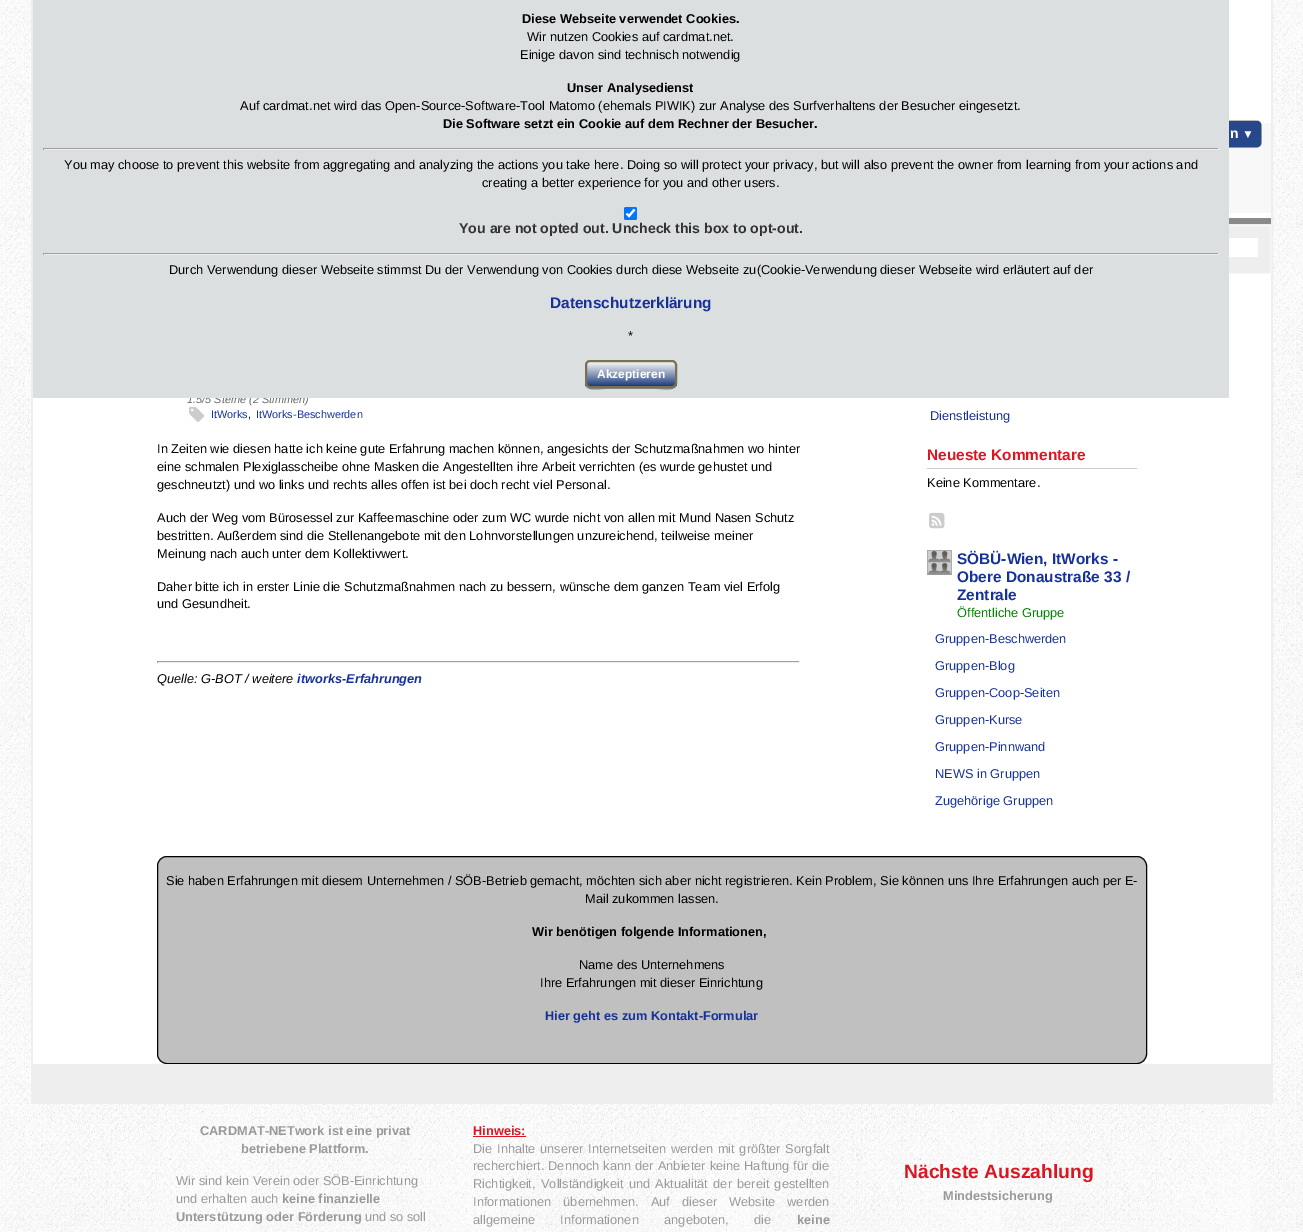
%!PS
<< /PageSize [1303 1232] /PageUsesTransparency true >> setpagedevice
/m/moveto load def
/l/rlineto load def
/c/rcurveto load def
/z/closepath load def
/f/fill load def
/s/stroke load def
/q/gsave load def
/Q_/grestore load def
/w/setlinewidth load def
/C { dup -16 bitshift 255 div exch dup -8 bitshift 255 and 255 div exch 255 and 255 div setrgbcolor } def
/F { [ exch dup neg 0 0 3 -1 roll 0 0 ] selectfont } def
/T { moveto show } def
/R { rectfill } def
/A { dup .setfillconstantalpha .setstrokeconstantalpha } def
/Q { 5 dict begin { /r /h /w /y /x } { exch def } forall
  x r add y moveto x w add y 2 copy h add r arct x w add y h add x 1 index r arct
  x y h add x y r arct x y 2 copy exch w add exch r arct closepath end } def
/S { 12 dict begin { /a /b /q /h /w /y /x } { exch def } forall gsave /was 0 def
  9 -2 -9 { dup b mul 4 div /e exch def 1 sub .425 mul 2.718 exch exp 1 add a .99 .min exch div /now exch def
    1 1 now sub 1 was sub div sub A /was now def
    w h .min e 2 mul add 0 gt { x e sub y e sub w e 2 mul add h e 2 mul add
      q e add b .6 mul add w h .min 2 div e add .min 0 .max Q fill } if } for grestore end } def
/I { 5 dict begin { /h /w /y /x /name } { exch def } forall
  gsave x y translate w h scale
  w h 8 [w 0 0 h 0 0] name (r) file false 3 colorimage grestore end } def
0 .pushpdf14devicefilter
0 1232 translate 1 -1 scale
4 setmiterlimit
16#FFFFFF C
0 0 1303 1232 R
(1.rgb) 0 0 1303 1232 I
33 0 1238 1064 R
16#EEEEEE C
1271 0 2 1104 R
31 0 2 1104 R
16#F8F8F8 C
1229 123 42 90 R
16#000000 C
1164 121 97 26 4 .5 1 S
16#26478A C
1164.5 121.5 96 25 3.5 Q q f Q_
s
16#EEEEEE C
1229 226 41 47 R
16#F8F8F8 C
980.5 225.5 290 48 rectstroke
/LiberationSans-Italic 10.9 F
16#666666 C
(1.5/5 Sterne \(2 Stimmen\)) 187 403 T
16#DCDFE0 C
33 0 1196 398 R
/LiberationSans-Bold 12.8 F
16#000000 C
(Diese Webseite verwendet Cookies.) 522 23 T
/LiberationSans-Regular 12.8 F
(Wir nutzen Cookies auf cardmat.net.) 527 41 T
(Einige davon sind technisch notwendig) 520 59 T
/LiberationSans-Bold 12.8 F
(Unser Analysedienst) 567 92 T
/LiberationSans-Regular 12.8 F
(Auf cardmat.net wird das Open-Source-Software-Tool Matomo \(ehemals PIWIK\) zur Analyse des Surfverhaltens der Besucher eingesetzt.) 240 110 T
/LiberationSans-Bold 12.8 F
(Die Software setzt ein Cookie auf dem Rechner der Besucher.) 443 128 T
16#9F9F9F C
43 148 1176 1 R
16#EEEEEE C
1218 148 1 2 R
43 149 1176 1 R
16#9F9F9F C
43 148 1 2 R
/LiberationSans-Regular 12.8 F
16#000000 C
(You may choose to prevent this website from aggregating and analyzing the actions you take here. Doing so will protect your privacy, but will also prevent the owner from learning from your actions and) 64 169 T
(creating a better experience for you and other users.) 482 187 T
16#0075FF C
624 207 13 13 2 Q f
16#FFFFFF C
2.1 w
626.5 213.5 m 2.5 2.5 l 5.5 -6.5 l s
/LiberationSans-Bold 14.1 F
16#333333 C
(You are not opted out. Uncheck this box to opt-out.) 459 233 T
16#9F9F9F C
43 253 1176 1 R
16#EEEEEE C
1218 253 1 2 R
43 254 1176 1 R
16#9F9F9F C
43 253 1 2 R
/LiberationSans-Regular 12.8 F
16#000000 C
(Durch Verwendung dieser Webseite stimmst Du der Verwendung von Cookies durch diese Webseite zu\(Cookie-Verwendung dieser Webseite wird erläutert auf der) 169 274 T
/LiberationSans-Bold 15.4 F
16#16319A C
(Datenschutzerklärung) 550 308 T
/LiberationSans-Regular 12.8 F
16#000000 C
(*) 628 340 T
16#848686 C
585 383 m 0 9 13 6 19 6 c 54 0 l 6 0 19 3 19 -6 c 0 3 -2 5 -5 5 c -82 0 l -3 0 -5 -2 -5 -5 c z f
q
585 360 92 28 5 Q clip newpath
q 585 362 m 92 0 l 0 24 l -92 0 l z clip newpath
<< /ShadingType 2 /ColorSpace /DeviceRGB /Coords [631 362 631 386] /Extend [true true] /Function << /FunctionType 2 /Domain [0 1] /C0 [.973 .973 .973] /C1 [.114 .239 .494] /N 1 >> >> shfill Q_
Q_
16#787252 C
2 w
586 361 90 26 4 Q s
/LiberationSans-Bold 12 F
16#FFFFFF C
(Akzeptieren) 597 378 T
/LiberationSans-Bold 14 F
(n) 1230 138 T
/LiberationSans-Bold 12 F
(▼) 1242 138 T
16#EEEEEE C
1229 224 42 1 R
16#8A8A8A C
1229 218 42 6 R
16#FFFFFF C
1229 238 29 19 R
(2.rgb) 189 406 16 16 I
/LiberationSans-Regular 10.9 F
16#16319A C
(ItWorks) 211 418 T
16#000000 C
(,) 248 418 T
16#16319A C
(ItWorks-Beschwerden) 256 418 T
/LiberationSans-Regular 12.8 F
16#000000 C
(In Zeiten wie diesen hatte ich keine gute Erfahrung machen können, angesichts der Schutzmaßnahmen wo hinter) 157 453 T
(eine schmalen Plexiglasscheibe ohne Masken die Angestellten ihre Arbeit verrichten \(es wurde gehustet und) 157 471 T
(geschneutzt\) und wo links und rechts alles offen ist bei doch recht viel Personal.) 157 489 T
(Auch der Weg vom Bürosessel zur Kaffeemaschine oder zum WC wurde nicht von allen mit Mund Nasen Schutz) 157 522 T
(bestritten. Außerdem sind die Stellenangebote mit den Lohnvorstellungen unzureichend, teilweise meiner) 157 540 T
(Meinung nach auch unter dem Kollektivwert.) 157 558 T
(Daher bitte ich in erster Linie die Schutzmaßnahmen nach zu bessern, wünsche dem ganzen Team viel Erfolg) 157 591 T
(und Gesundheit.) 157 608 T
16#9F9F9F C
157 661 643 1 R
16#EEEEEE C
799 661 1 2 R
157 662 643 1 R
16#9F9F9F C
157 661 1 2 R
/LiberationSans-Italic 12.8 F
16#000000 C
(Quelle: G-BOT / weitere) 157 683 T
/LiberationSans-BoldItalic 12.8 F
16#16319A C
(itworks-Erfahrungen) 297 683 T
/LiberationSans-Regular 12.8 F
(Dienstleistung) 930 420 T
16#CCCCCC C
927 468 210 1 R
/LiberationSans-Bold 15.4 F
16#DB1620 C
(Neueste Kommentare) 927 460 T
/LiberationSans-Regular 12.8 F
16#000000 C
(Keine Kommentare.) 927 487 T
(3.rgb) 929 512 16 17 I
(4.rgb) 927 550 25 25 I
/LiberationSans-Bold 15.4 F
16#16319A C
(SÖBÜ-Wien, ItWorks -) 957 564 T
(Obere Donaustraße 33 /) 957 582 T
(Zentrale) 957 600 T
/LiberationSans-Regular 12.8 F
16#008000 C
(Öffentliche Gruppe) 957 617 T
16#16319A C
(Gruppen-Beschwerden) 935 643 T
(Gruppen-Blog) 935 670 T
(Gruppen-Coop-Seiten) 935 697 T
(Gruppen-Kurse) 935 724 T
(Gruppen-Pinnwand) 935 751 T
(NEWS in Gruppen) 935 778 T
(Zugehörige Gruppen) 935 805 T
16#C0C0C0 C
157.5 856.5 989 207 9.5 Q q f Q_
16#000000 C
1 w
s
(Sie haben Erfahrungen mit diesem Unternehmen / SÖB-Betrieb gemacht, möchten sich aber nicht registrieren. Kein Problem, Sie können uns Ihre Erfahrungen auch per E-) 166 885 T
(Mail zukommen lassen.) 585 903 T
/LiberationSans-Bold 12.8 F
(Wir benötigen folgende Informationen,) 532 936 T
/LiberationSans-Regular 12.8 F
(Name des Unternehmens) 579 969 T
(Ihre Erfahrungen mit dieser Einrichtung) 540 987 T
/LiberationSans-Bold 12.8 F
16#16319A C
(Hier geht es zum Kontakt-Formular) 545 1020 T
16#EEEEEE C
33 1064 1238 40 R
16#999999 C
(CARDMAT-NETwork ist eine privat) 200 1135 T
(betriebene Plattform.) 241 1153 T
/LiberationSans-Regular 12.8 F
(Wir sind kein Verein oder SÖB-Einrichtung) 176 1185 T
(und erhalten auch) 176 1203 T
/LiberationSans-Bold 12.8 F
(keine finanzielle) 282 1203 T
(Unterstützung oder Förderung) 176 1221 T
/LiberationSans-Regular 12.8 F
(und so soll) 365 1221 T
/LiberationSans-Bold 12.8 F
16#DB1620 C
(Hinweis:) 473 1135 T
473 1136 53 1 R
/LiberationSans-Regular 12.8 F
16#999999 C
473 1153 m 1.25 0 32 (Die Inhalte unserer Internetseiten werden mit größter Sorgfalt) widthshow
473 1170 m .5 0 32 (recherchiert. Dennoch kann der Anbieter keine Haftung für die) widthshow
473 1188 m 1.75 0 32 (Richtigkeit, Vollständigkeit und Aktualität der bereit gestellten) widthshow
473 1206 m 8.5 0 32 (Informationen übernehmen. Auf dieser Website werden) widthshow
473 1224 m 22 0 32 (allgemeine Informationen angeboten, die) widthshow
/LiberationSans-Bold 12.8 F
(keine) 797 1224 T
/LiberationSans-Bold 19.25 F
16#DB1620 C
(Nächste Auszahlung) 904 1178 T
/LiberationSans-Bold 12.8 F
16#999999 C
(Mindestsicherung) 943 1200 T
.poppdf14devicefilter showpage
